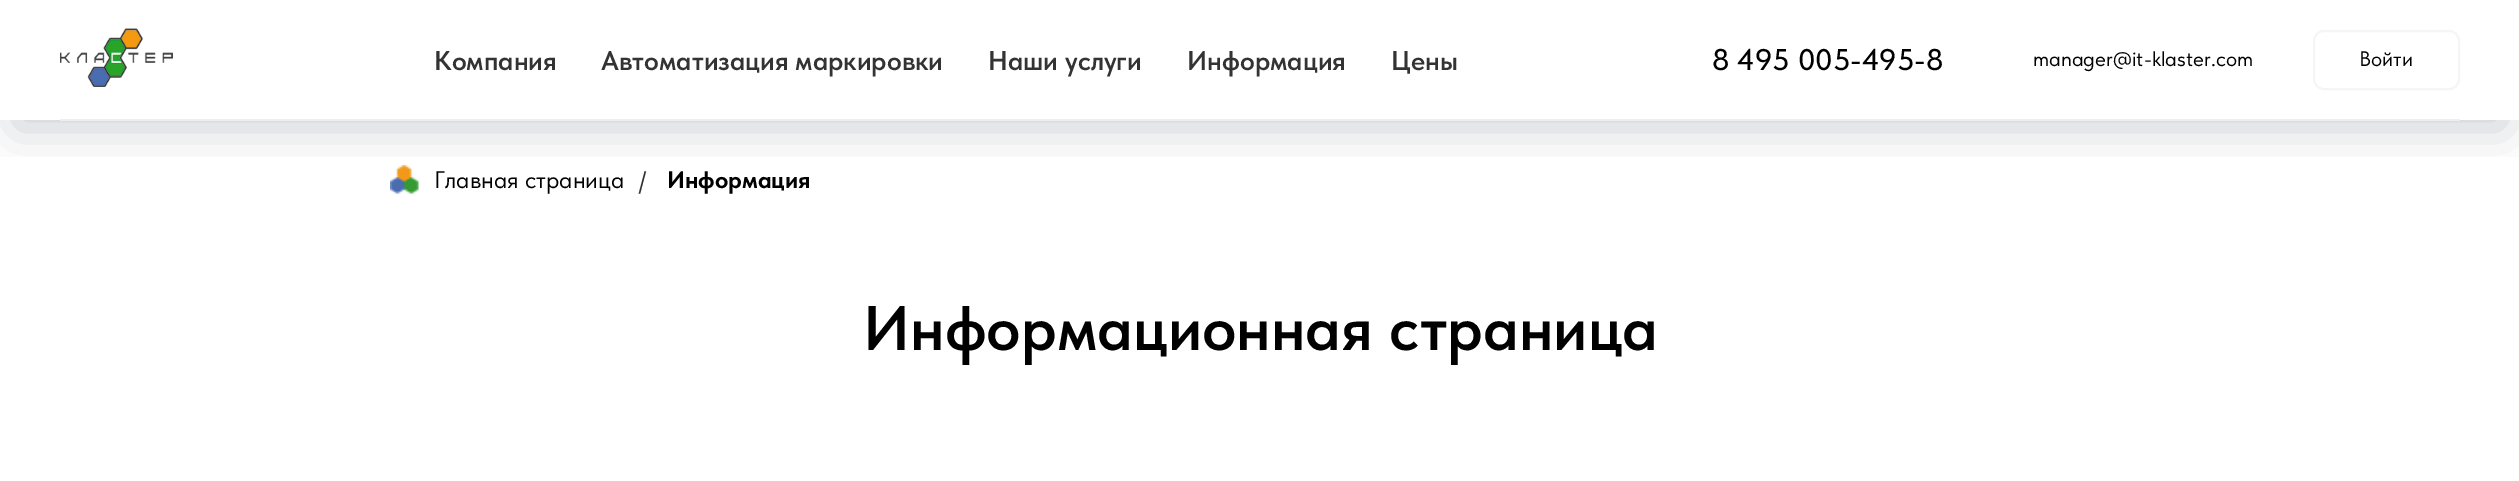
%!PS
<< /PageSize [2519 481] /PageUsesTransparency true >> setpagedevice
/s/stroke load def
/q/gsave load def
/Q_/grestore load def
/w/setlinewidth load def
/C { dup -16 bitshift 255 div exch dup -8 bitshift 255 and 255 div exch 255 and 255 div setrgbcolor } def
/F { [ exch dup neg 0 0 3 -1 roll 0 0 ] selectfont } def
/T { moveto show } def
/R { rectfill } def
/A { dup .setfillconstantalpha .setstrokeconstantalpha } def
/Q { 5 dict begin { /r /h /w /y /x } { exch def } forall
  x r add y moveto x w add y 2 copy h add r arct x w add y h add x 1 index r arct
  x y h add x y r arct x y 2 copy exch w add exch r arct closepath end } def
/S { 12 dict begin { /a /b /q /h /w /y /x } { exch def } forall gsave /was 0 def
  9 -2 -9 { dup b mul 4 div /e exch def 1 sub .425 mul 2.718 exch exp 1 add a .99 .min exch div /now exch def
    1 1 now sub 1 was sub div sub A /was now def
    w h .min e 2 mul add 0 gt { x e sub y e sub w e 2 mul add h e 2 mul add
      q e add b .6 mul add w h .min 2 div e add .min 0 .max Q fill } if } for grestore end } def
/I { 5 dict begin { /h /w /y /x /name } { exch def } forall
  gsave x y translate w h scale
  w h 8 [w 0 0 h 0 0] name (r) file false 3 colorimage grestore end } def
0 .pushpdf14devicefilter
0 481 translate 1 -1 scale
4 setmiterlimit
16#FFFFFF C
0 0 2519 481 R
(2.rgb) 390 165 29 29 I
q
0 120 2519 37 rectclip
16#000B30 C
15 38 2490 90 0 22.5 .2 S
Q_
(1.rgb) 60 28 113 59 I
/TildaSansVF-SemiBold 27 F
16#333333 C
(Компания) 434 70 T
(Автоматизация маркировки) 601 70 T
(Наши услуги) 988 70 T
(Информация) 1187 70 T
(Цены) 1391 70 T
/TildaSansVF-Medium 30 F
16#000000 C
(8 495 005-495-8) 1712 70 T
/TildaSansVF-Regular 21 F
(manager@it-klaster.com) 2033 66 T
16#F5F5F5 C
2 w
2314 31 145 58 10 Q s
16#000000 C
(Войти) 2359 66 T
16#EFEFEF C
60 119 2400 2 R
/TildaSansVF-Regular 24 F
16#000000 C
(Главная страница) 434 188 T
16#333333 C
(/) 639 188 T
/TildaSansVF-Bold 24 F
16#000000 C
(Информация) 667 188 T
/TildaSansVF-SemiBold 63 F
(Информационная страница) 863 350 T
.poppdf14devicefilter showpage
